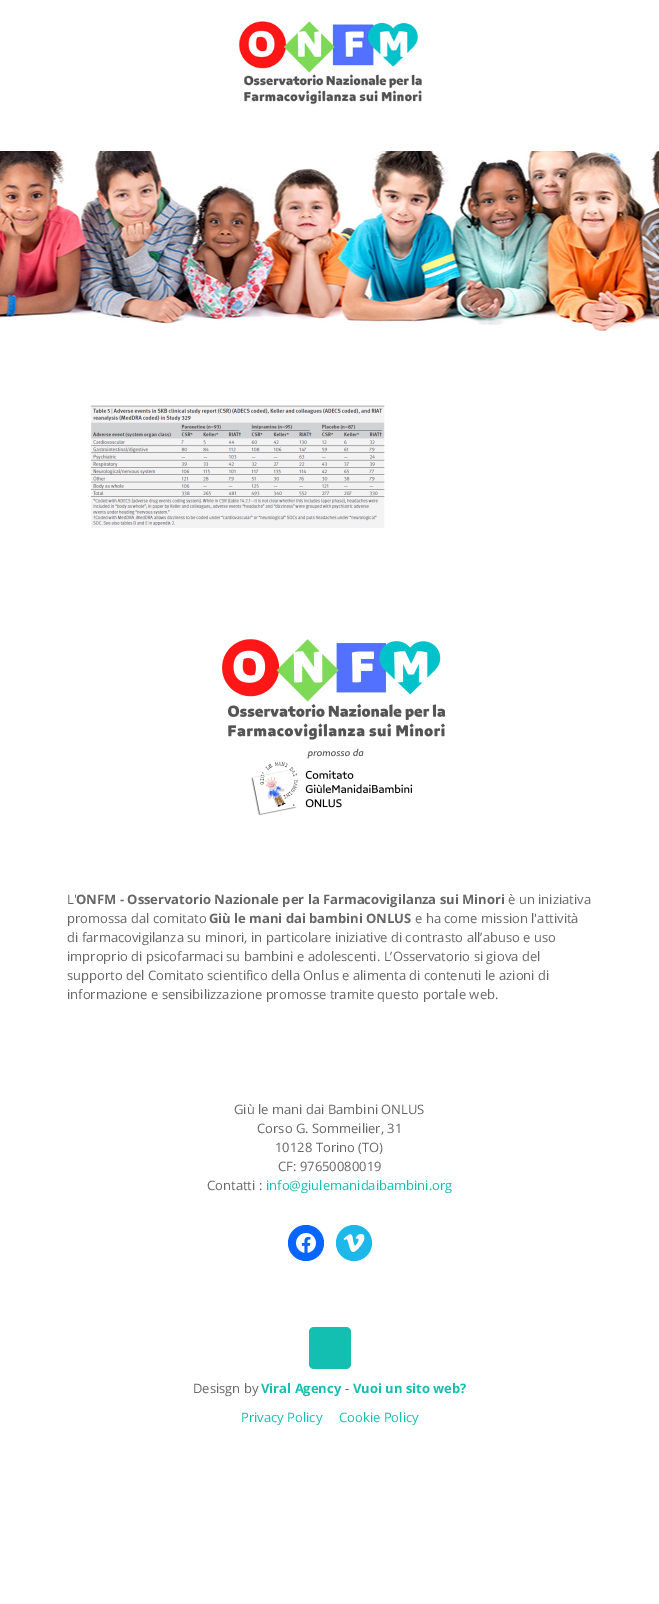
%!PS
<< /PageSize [659 1604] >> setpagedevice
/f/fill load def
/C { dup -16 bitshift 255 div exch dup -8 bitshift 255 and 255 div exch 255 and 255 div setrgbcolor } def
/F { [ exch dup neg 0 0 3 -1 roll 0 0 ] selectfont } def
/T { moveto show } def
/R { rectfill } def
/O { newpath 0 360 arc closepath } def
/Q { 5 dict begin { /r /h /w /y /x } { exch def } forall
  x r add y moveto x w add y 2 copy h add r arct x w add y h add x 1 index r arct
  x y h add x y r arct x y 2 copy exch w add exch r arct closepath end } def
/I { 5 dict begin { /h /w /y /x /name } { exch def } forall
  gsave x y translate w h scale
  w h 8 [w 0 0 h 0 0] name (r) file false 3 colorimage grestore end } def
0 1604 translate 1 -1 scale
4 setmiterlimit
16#FFFFFF C
0 0 659 1604 R
(1.rgb) 0 151 659 182 I
(2.rgb) 239 21 183 84 I
(3.rgb) 90 405 295 123 I
(4.rgb) 222 639 223 177 I
/OpenSans-Regular 13 F
16#666666 C
(L') 67 904 T
/OpenSans-Bold 13 F
(ONFM - Osservatorio Nazionale per la Farmacovigilanza sui Minori) 76 904 T
/OpenSans-Regular 13 F
(è un iniziativa) 508 904 T
(promossa dal comitato) 67 923 T
/OpenSans-Bold 13 F
(Giù le mani dai bambini ONLUS) 209 923 T
/OpenSans-Regular 13 F
(e ha come mission l'attività) 415 923 T
(di farmacovigilanza su minori, in particolare iniziative di contrasto all’abuso e uso) 67 942 T
(improprio di psicofarmaci su bambini e adolescenti. L’Osservatorio si giova del) 67 961 T
(supporto del Comitato scientifico della Onlus e alimenta di contenuti le azioni di) 67 980 T
(informazione e sensibilizzazione promosse tramite questo portale web.) 67 999 T
(Giù le mani dai Bambini ONLUS) 234 1114 T
(Corso G. Sommeilier, 31) 257 1133 T
(10128 Torino \(TO\)) 275 1152 T
(CF: 97650080019) 278 1171 T
(Contatti :) 207 1190 T
16#13BFB1 C
(info@giulemanidaibambini.org) 266 1190 T
16#0866FF C
306 1243 18 O f
(5.rgb) 296 1233 20 20 I
16#1EB7EA C
354 1243 18 O f
(6.rgb) 343 1234 22 18 I
16#13BFB1 C
309 1327 42 42 5 Q f
16#666666 C
(Desisgn by) 193 1393 T
/OpenSans-Bold 13 F
16#13BFB1 C
(Viral Agency) 261 1393 T
/OpenSans-Regular 13 F
16#666666 C
(-) 345 1393 T
/OpenSans-Bold 13 F
16#13BFB1 C
(Vuoi un sito web?) 353 1393 T
/OpenSans-Regular 13 F
(Privacy Policy) 241 1422 T
(Cookie Policy) 339 1422 T
showpage
